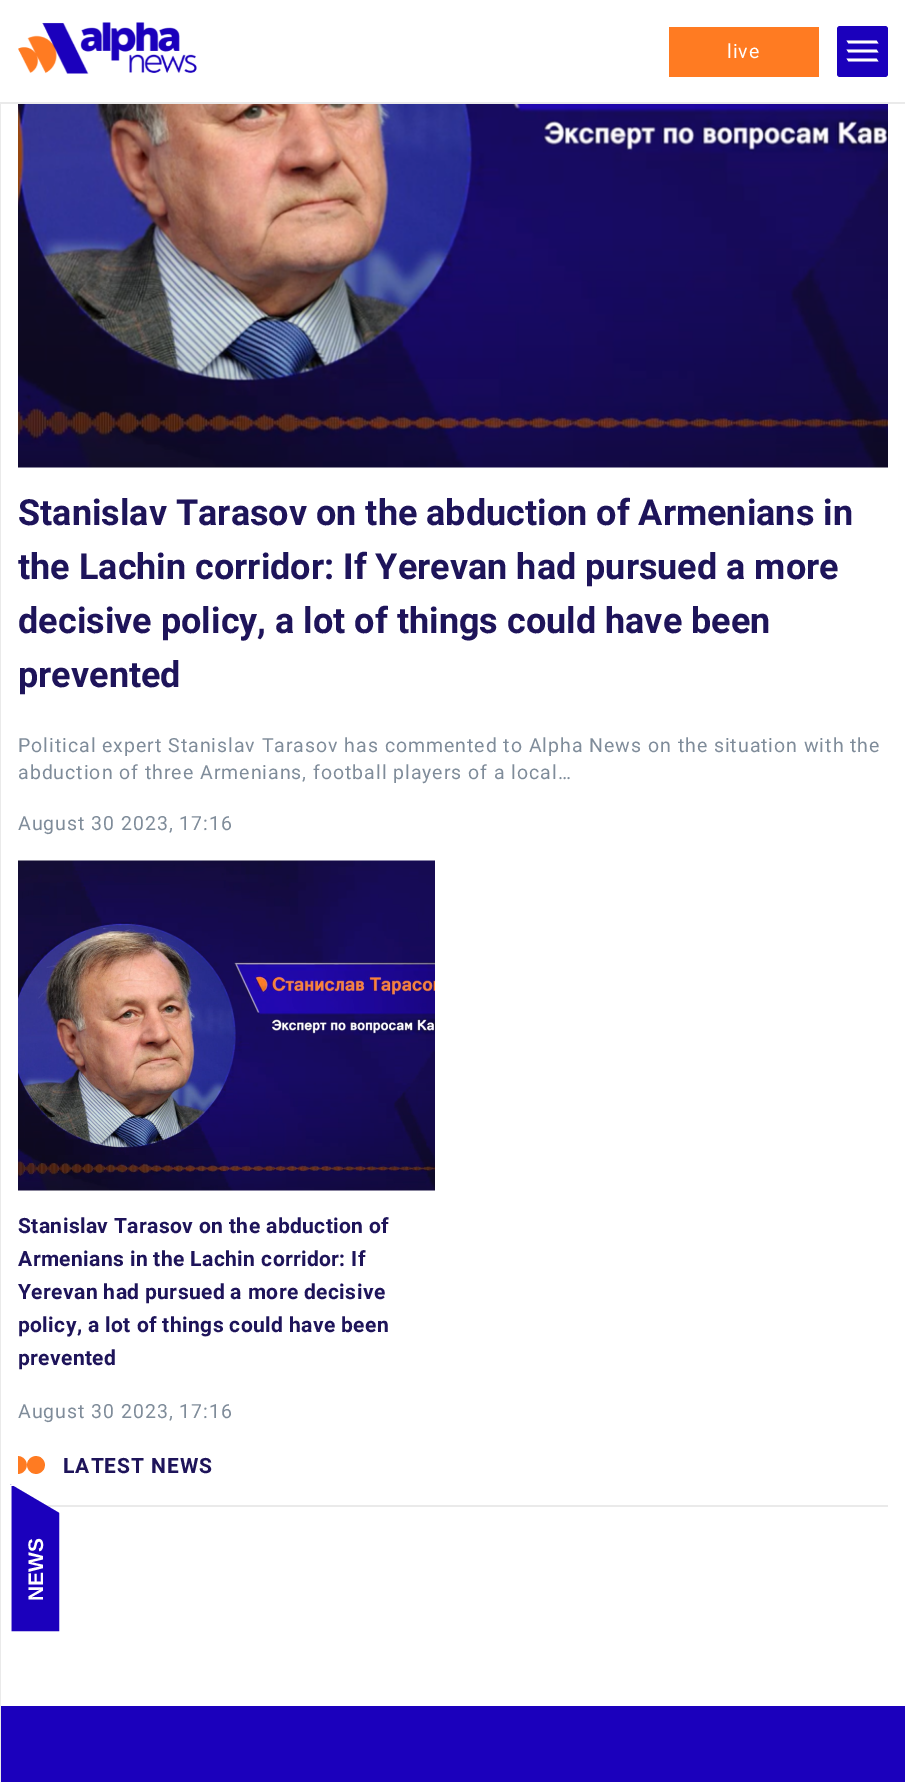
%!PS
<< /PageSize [905 1782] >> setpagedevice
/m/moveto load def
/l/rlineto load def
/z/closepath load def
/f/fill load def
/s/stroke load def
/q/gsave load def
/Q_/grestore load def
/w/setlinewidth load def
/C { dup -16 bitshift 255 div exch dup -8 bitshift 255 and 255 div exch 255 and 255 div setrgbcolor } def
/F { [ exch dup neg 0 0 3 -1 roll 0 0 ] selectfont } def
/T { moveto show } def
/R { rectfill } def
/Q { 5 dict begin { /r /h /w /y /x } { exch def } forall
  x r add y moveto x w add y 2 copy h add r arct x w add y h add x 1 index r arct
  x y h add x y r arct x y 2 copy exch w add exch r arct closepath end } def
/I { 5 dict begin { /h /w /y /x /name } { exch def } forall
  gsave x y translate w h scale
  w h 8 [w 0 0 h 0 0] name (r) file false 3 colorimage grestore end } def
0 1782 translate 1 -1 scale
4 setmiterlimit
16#FFFFFF C
0 0 905 1782 R
16#EAEAEA C
0 102 1 1680 R
0 102 905 2 R
(1.rgb) 18 22 179 52 I
16#FF7B22 C
669 27 150 50 R
/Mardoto-Regular 19.5 F
16#FFFFFF C
727 58 m .98 0 (live) ashow
16#1B00BC C
837 26 51 51 3 Q f
16#FFFFFF C
846.5 40.5 m 30 0 l 2 3 l -30 0 l z 846.5 49.5 m 30 0 l 2 3 l -30 0 l z 846.5 58.5 m 30 0 l 2 3 l -30 0 l z f
(2.rgb) 18 104 870 364 I
/Mardoto-Bold 36 F
16#1E145A C
(Stanislav Tarasov on the abduction of Armenians in) 18 525 T
(the Lachin corridor: If Yerevan had pursued a more) 18 579 T
(decisive policy, a lot of things could have been) 18 633 T
(prevented) 18 687 T
/Mardoto-Regular 19.5 F
16#7F8C9A C
18 752 m .98 0 (Political expert Stanislav Tarasov has commented to Alpha News on the situation with the) ashow
18 779 m .98 0 (abduction of three Armenians, football players of a local…) ashow
18 830 m .98 0 (August 30 2023, 17:16) ashow
(3.rgb) 18 860 417 331 I
/Mardoto-Bold 21 F
16#1E145A C
18 1233 m .4 0 (Stanislav Tarasov on the abduction of) ashow
18 1266 m .4 0 (Armenians in the Lachin corridor: If) ashow
18 1299 m .4 0 (Yerevan had pursued a more decisive) ashow
18 1332 m .4 0 (policy, a lot of things could have been) ashow
18 1365 m .4 0 (prevented) ashow
/Mardoto-Regular 19.5 F
16#7F8C9A C
18 1418 m .98 0 (August 30 2023, 17:16) ashow
16#EAEAEA C
45 1505 843 2 R
(4.rgb) 18 1456 27 18 I
/Mardoto-Bold 21 F
16#1E145A C
63 1473 m 1 0 (LATEST NEWS) ashow
16#1B00BC C
10 1633 m 0 -149 l 51 30 l 0 119 l z f
q
10 1633 m 0 -149 l 51 30 l 0 119 l z clip newpath
16#FFFFFF C
1.5 w
10.5 1632 m 0 -147 l 49.5 0 l 0 147 l z s
Q_
/LiberationSans-Bold 21 F
16#FFFFFF C
q 43 1601 translate -90 rotate 0 0 m (NEWS) show Q_
16#1B00BC C
1 1706 904 76 R
showpage
